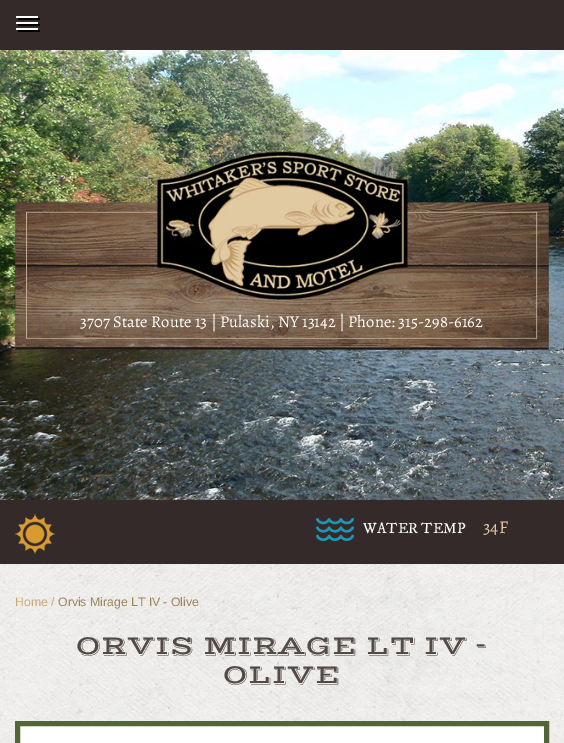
%!PS
<< /PageSize [564 743] >> setpagedevice
/m/moveto load def
/l/rlineto load def
/z/closepath load def
/f/fill load def
/s/stroke load def
/q/gsave load def
/Q_/grestore load def
/w/setlinewidth load def
/C { dup -16 bitshift 255 div exch dup -8 bitshift 255 and 255 div exch 255 and 255 div setrgbcolor } def
/F { [ exch dup neg 0 0 3 -1 roll 0 0 ] selectfont } def
/T { moveto show } def
/R { rectfill } def
/Q { 5 dict begin { /r /h /w /y /x } { exch def } forall
  x r add y moveto x w add y 2 copy h add r arct x w add y h add x 1 index r arct
  x y h add x y r arct x y 2 copy exch w add exch r arct closepath end } def
/I { 5 dict begin { /h /w /y /x /name } { exch def } forall
  gsave x y translate w h scale
  w h 8 [w 0 0 h 0 0] name (r) file false 3 colorimage grestore end } def
0 743 translate 1 -1 scale
4 setmiterlimit
16#FFFFFF C
0 0 564 743 R
(1.rgb) 0 564 564 179 I
16#332A29 C
0 0 564 50 R
16#000000 C
18 18 22 2 1 Q f
16#FFFFFF C
16 16 22 2 1 Q f
16#000000 C
18 24 22 2 1 Q f
16#FFFFFF C
16 22 22 2 1 Q f
16#000000 C
18 30 22 2 1 Q f
16#FFFFFF C
16 28 22 2 1 Q f
(2.rgb) 0 50 564 450 I
(3.rgb) 15 151 534 199 I
/Alegreya-Regular 16.6 F
(3707 State Route 13 | Pulaski, NY 13142 | Phone: 315-298-6162) 80 327 T
16#332A29 C
0 500 564 64 R
(4.rgb) 15 514 40 40 I
(5.rgb) 316 518 38 23 I
/IMFELLDWPica-Regular 15 F
16#FFFFFF C
(WATER TEMP) 363 533 T
/Alegreya-Regular 18 F
16#E0C9A0 C
(34F) 483 533 T
/LiberationSans-Regular 12.25 F
16#C9AA74 C
(Home /) 15 606 T
16#9D8357 C
(Orvis Mirage LT IV - Olive) 58 606 T
/VastShadow-Regular 27.1 F
16#544A45 C
(ORVIS MIRAGE LT IV -) 76 654 T
(OLIVE) 223 683 T
16#FFFFFF C
17.5 723.5 m 529 0 l 0 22 l -529 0 l z q f Q_
16#526637 C
5 w
s
showpage
